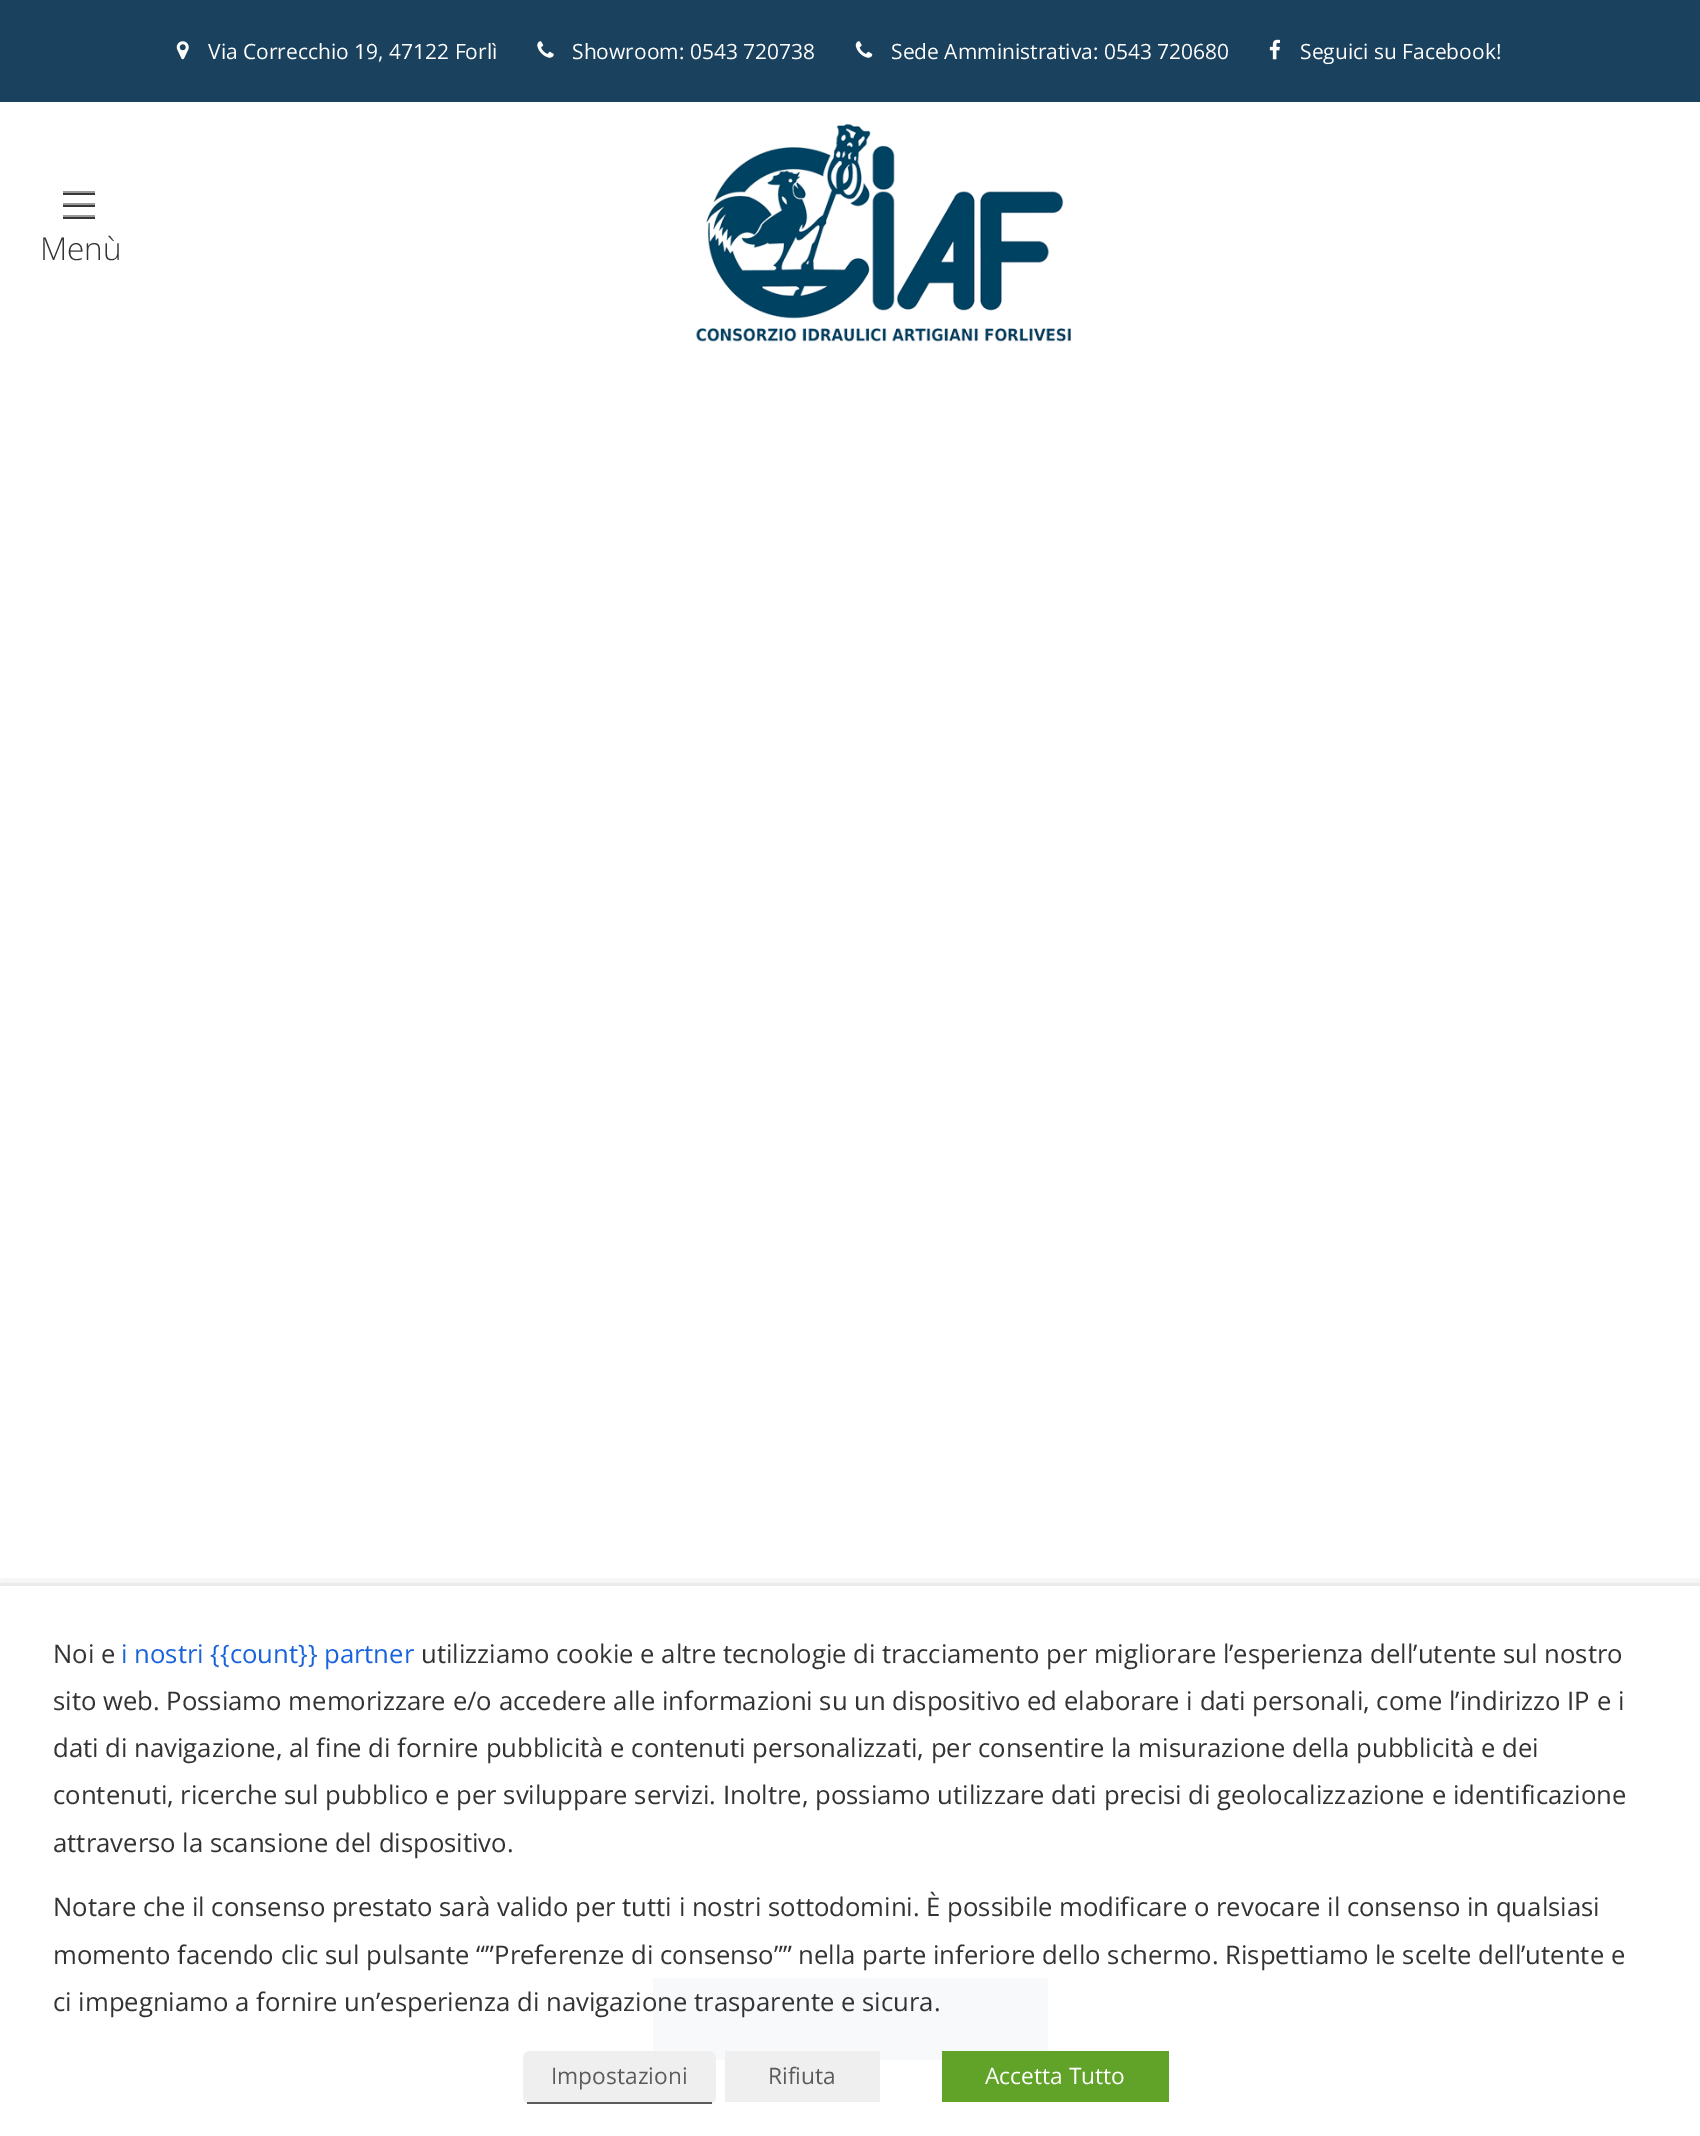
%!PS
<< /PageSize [1700 2136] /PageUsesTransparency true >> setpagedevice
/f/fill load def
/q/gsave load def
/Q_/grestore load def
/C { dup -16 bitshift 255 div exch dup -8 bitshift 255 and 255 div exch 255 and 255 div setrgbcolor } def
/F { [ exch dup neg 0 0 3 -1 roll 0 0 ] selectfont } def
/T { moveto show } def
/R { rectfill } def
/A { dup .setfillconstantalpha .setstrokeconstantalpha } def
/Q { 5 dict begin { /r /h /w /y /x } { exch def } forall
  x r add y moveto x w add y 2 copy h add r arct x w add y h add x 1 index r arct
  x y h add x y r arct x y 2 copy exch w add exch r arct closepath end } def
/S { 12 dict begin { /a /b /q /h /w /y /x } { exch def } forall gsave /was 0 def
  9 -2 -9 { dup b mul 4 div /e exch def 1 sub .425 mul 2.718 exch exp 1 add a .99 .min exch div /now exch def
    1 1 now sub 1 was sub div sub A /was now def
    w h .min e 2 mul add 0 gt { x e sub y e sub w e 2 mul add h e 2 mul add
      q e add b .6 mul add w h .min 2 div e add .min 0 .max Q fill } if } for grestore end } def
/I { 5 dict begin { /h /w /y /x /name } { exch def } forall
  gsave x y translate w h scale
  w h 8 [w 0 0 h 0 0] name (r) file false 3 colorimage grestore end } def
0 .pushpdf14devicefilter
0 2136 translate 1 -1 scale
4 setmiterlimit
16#FFFFFF C
0 0 1700 2136 R
16#1A415E C
0 0 1700 102 R
(1.rgb) 176 41 13 19 I
/OpenSans-Regular 21 F
16#FFFFFF C
(Via Correcchio 19, 47122 Forlì) 208 59 T
(2.rgb) 537 41 17 17 I
(Showroom: 0543 720738) 572 59 T
(3.rgb) 855 41 18 17 I
(Sede Amministrativa: 0543 720680) 891 59 T
(4.rgb) 1269 39 11 21 I
(Seguici su Facebook!) 1300 59 T
16#373737 C
63 193 32 2 R
16#9B9B9B C
63 191 32 2 R
16#373737 C
63 205 32 2 R
16#9B9B9B C
63 203 32 2 R
16#373737 C
63 217 32 2 R
16#9B9B9B C
63 215 32 2 R
/OpenSans-Light 31.5 F
16#333333 C
(Menù) 40 260 T
(5.rgb) 696 124 375 218 I
16#F8F9FB C
653 1978 395 82 R
q
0 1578 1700 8 rectclip
16#000000 C
0 1594 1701 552 0 9 .5 S
Q_
/OpenSans-Regular 25.67 F
16#333333 C
(Noi e) 53 1663 T
16#1863DC C
(i nostri {{count}} partner) 121 1663 T
16#333333 C
(utilizziamo cookie e altre tecnologie di tracciamento per migliorare l’esperienza dell’utente sul nostro) 421 1663 T
(sito web. Possiamo memorizzare e/o accedere alle informazioni su un dispositivo ed elaborare i dati personali, come l’indirizzo IP e i) 53 1710 T
(dati di navigazione, al fine di fornire pubblicità e contenuti personalizzati, per consentire la misurazione della pubblicità e dei) 53 1757 T
(contenuti, ricerche sul pubblico e per sviluppare servizi. Inoltre, possiamo utilizzare dati precisi di geolocalizzazione e identificazione) 53 1804 T
(attraverso la scansione del dispositivo.) 53 1852 T
(Notare che il consenso prestato sarà valido per tutti i nostri sottodomini. È possibile modificare o revocare il consenso in qualsiasi) 53 1916 T
(momento facendo clic sul pulsante “”Preferenze di consenso”” nella parte inferiore dello schermo. Rispettiamo le scelte dell’utente e) 53 1964 T
(ci impegniamo a fornire un’esperienza di navigazione trasparente e sicura.) 53 2011 T
16#EFEFEF C
523 2051 193 53 7 Q f
16#5B5B5B C
527 2102 185 2 R
/OpenSans-Regular 22.75 F
(Impostazioni) 551 2084 T
16#EFEFEF C
725 2051 155 51 R
16#5B5B5B C
(Rifiuta) 768 2084 T
16#61A229 C
942 2051 227 51 R
16#FFFFFF C
(Accetta Tutto) 985 2084 T
.poppdf14devicefilter showpage
